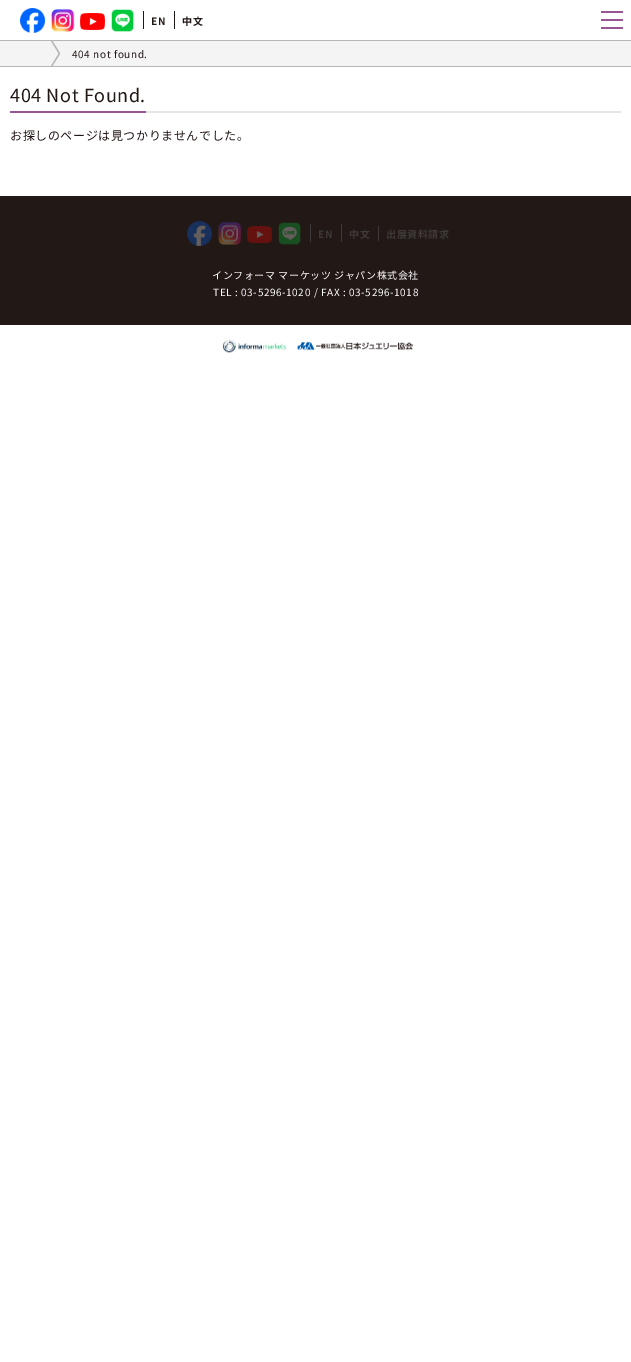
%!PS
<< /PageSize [631 1362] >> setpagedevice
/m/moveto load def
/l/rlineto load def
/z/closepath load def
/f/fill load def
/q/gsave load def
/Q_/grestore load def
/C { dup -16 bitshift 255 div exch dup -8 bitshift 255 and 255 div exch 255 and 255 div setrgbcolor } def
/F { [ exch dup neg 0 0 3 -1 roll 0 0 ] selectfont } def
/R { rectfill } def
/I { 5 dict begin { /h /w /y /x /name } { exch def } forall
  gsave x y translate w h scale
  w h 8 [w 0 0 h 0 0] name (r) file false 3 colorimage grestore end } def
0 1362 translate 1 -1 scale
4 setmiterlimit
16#FFFFFF C
0 0 631 1362 R
16#B5B6B6 C
0 40 631 1 R
(1.rgb) 20 8 25 25 I
(2.rgb) 51 9 24 23 I
(3.rgb) 80 13 25 17 I
(4.rgb) 111 9 23 23 I
16#221815 C
143 11 1 18 R
/NotoSansJP-Bold 10 F
151 25 m .6 0 (EN) ashow
174 11 1 18 R
182 25 m .6 0 (中文) ashow
16#985594 C
601 11 22 2 R
601 19 22 2 R
601 27 22 2 R
16#F4F4F4 C
0 41 631 25 R
16#B5B6B6 C
0 66 631 1 R
q
10 41 50 25 rectclip
47 34.5 m 1 -.5 l 12 19 l -1 1 l z f
59 53 m 1 1 l -12 19 l -1 -.5 l z f
Q_
/NotoSansJP-Regular 10 F
16#221815 C
72 58 m .6 0 (404 not found.) ashow
/NotoSansJP-Regular 18 F
10 102 m .6 0 (404 Not Found.) ashow
16#985594 C
10 111 136 2 R
16#E5E5E5 C
146 111 475 2 R
/NotoSansJP-Regular 12 F
16#221815 C
10 140 m .6 0 (お探しのページは見つかりませんでした。) ashow
0 196 631 129 R
(5.rgb) 187 221 25 25 I
(6.rgb) 218 222 24 23 I
(7.rgb) 247 226 25 17 I
(8.rgb) 278 222 23 23 I
16#3E3A39 C
310 224 1 18 R
/NotoSansJP-Bold 10 F
318 238 m .6 0 (EN) ashow
341 224 1 18 R
349 238 m .6 0 (中文) ashow
378 226 1 15 R
386 238 m .6 0 (出展資料請求) ashow
/NotoSansJP-Regular 10 F
16#FFFFFF C
212 279 m .6 0 (インフォーマ マーケッツ ジャパン株式会社) ashow
213 296 m .6 0 (TEL : 03-5296-1020 / FAX : 03-5296-1018) ashow
(9.rgb) 222 339 65 15 I
(10.rgb) 297 342 116 9 I
showpage
